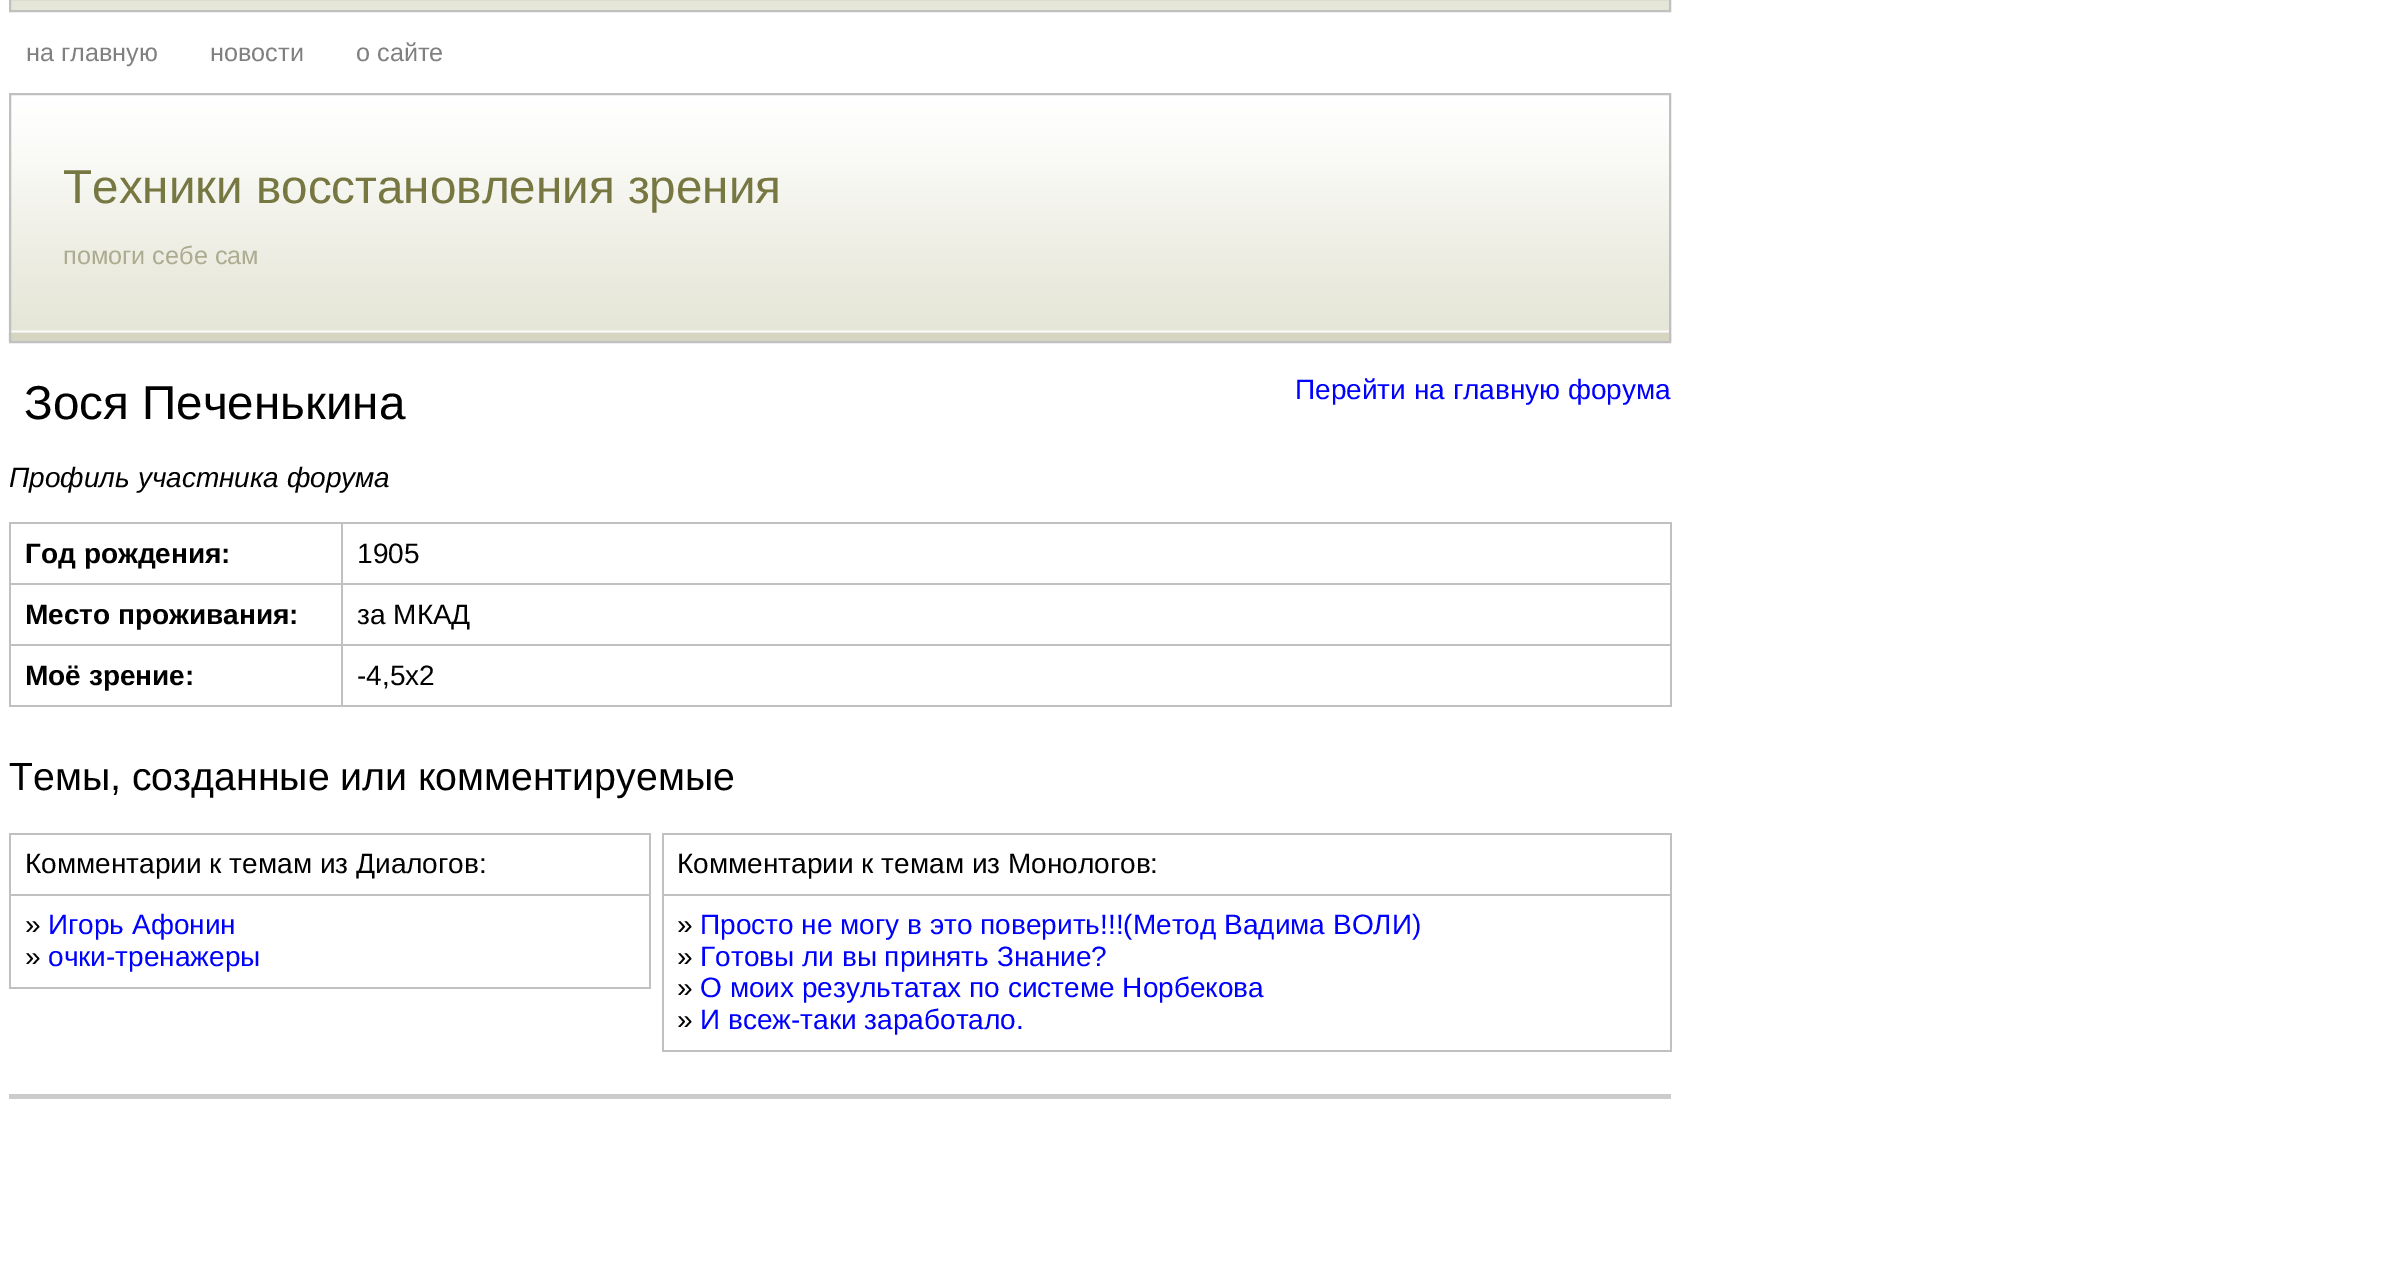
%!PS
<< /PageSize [2387 1265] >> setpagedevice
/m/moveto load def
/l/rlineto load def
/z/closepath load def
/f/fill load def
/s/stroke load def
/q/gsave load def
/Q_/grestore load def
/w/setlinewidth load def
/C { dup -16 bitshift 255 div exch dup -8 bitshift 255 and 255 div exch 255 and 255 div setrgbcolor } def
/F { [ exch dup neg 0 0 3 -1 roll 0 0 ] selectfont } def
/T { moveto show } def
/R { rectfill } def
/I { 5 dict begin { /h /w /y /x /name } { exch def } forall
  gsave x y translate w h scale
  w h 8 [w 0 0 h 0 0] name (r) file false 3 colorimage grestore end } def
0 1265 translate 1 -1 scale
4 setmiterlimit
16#FFFFFF C
0 0 2387 1265 R
16#E6E6D8 C
10 -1 m 1660 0 l 0 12 l -1660 0 l z q f Q_
16#C0C0C0 C
2 w
s
/LiberationSans-Regular 25.25 F
16#808080 C
(на главную) 26 61 T
(новости) 210 61 T
(о сайте) 356 61 T
(1.rgb) 8 94 1664 248 I
16#C0C0C0 C
10 94 1660 248 rectstroke
/LiberationSans-Regular 47.6 F
16#777742 C
(Техники восстановления зрения) 63 203 T
/LiberationSans-Regular 25.25 F
16#ACAC91 C
(помоги себе сам) 63 264 T
/LiberationSans-Regular 47.6 F
16#000000 C
(Зося Печенькина) 24 419 T
/LiberationSans-Regular 28 F
16#0000FF C
(Перейти на главную форума) 1295 399 T
/LiberationSans-Italic 28 F
16#000000 C
(Профиль участника форума) 9 487 T
16#C0C0C0 C
341 522 1330 2 R
341 583 1330 2 R
1670 644 2 63 R
1670 583 2 63 R
341 705 1330 2 R
341 644 2 63 R
9 644 334 2 R
341 644 1330 2 R
341 583 2 63 R
9 583 334 2 R
341 522 2 63 R
9 522 334 2 R
9 705 334 2 R
9 644 2 63 R
9 583 2 63 R
9 522 2 63 R
/LiberationSans-Bold 28 F
16#000000 C
(Год рождения:) 25 563 T
16#C0C0C0 C
1670 522 2 63 R
/LiberationSans-Regular 28 F
16#000000 C
(1905) 357 563 T
/LiberationSans-Bold 28 F
(Место проживания:) 25 624 T
/LiberationSans-Regular 28 F
(за МКАД) 357 624 T
/LiberationSans-Bold 28 F
(Моё зрение:) 25 685 T
/LiberationSans-Regular 28 F
(-4,5x2) 357 685 T
/LiberationSans-Regular 39.25 F
(Темы, созданные или комментируемые) 9 790 T
16#C0C0C0 C
9 833 642 2 R
9 894 642 2 R
649 894 2 95 R
649 833 2 63 R
9 987 642 2 R
9 894 2 95 R
9 833 2 63 R
/LiberationSans-Regular 28 F
16#000000 C
(Комментарии к темам из Диалогов:) 25 873 T
(») 25 934 T
16#0000FF C
(Игорь Афонин) 48 934 T
16#000000 C
(») 25 966 T
16#0000FF C
(очки-тренажеры) 48 966 T
16#C0C0C0 C
662 833 1009 2 R
662 894 1009 2 R
1670 894 2 158 R
1670 833 2 63 R
662 1050 1009 2 R
662 894 2 158 R
662 833 2 63 R
16#000000 C
(Комментарии к темам из Монологов:) 677 873 T
(») 677 934 T
16#0000FF C
(Просто не могу в это поверить!!!\(Метод Вадима ВОЛИ\)) 700 934 T
16#000000 C
(») 677 966 T
16#0000FF C
(Готовы ли вы принять Знание?) 700 966 T
16#000000 C
(») 677 997 T
16#0000FF C
(О моих результатах по системе Норбекова) 700 997 T
16#000000 C
(») 677 1029 T
16#0000FF C
(И всеж-таки заработало.) 700 1029 T
16#CCCCCC C
9 1094 1662 5 R
showpage
